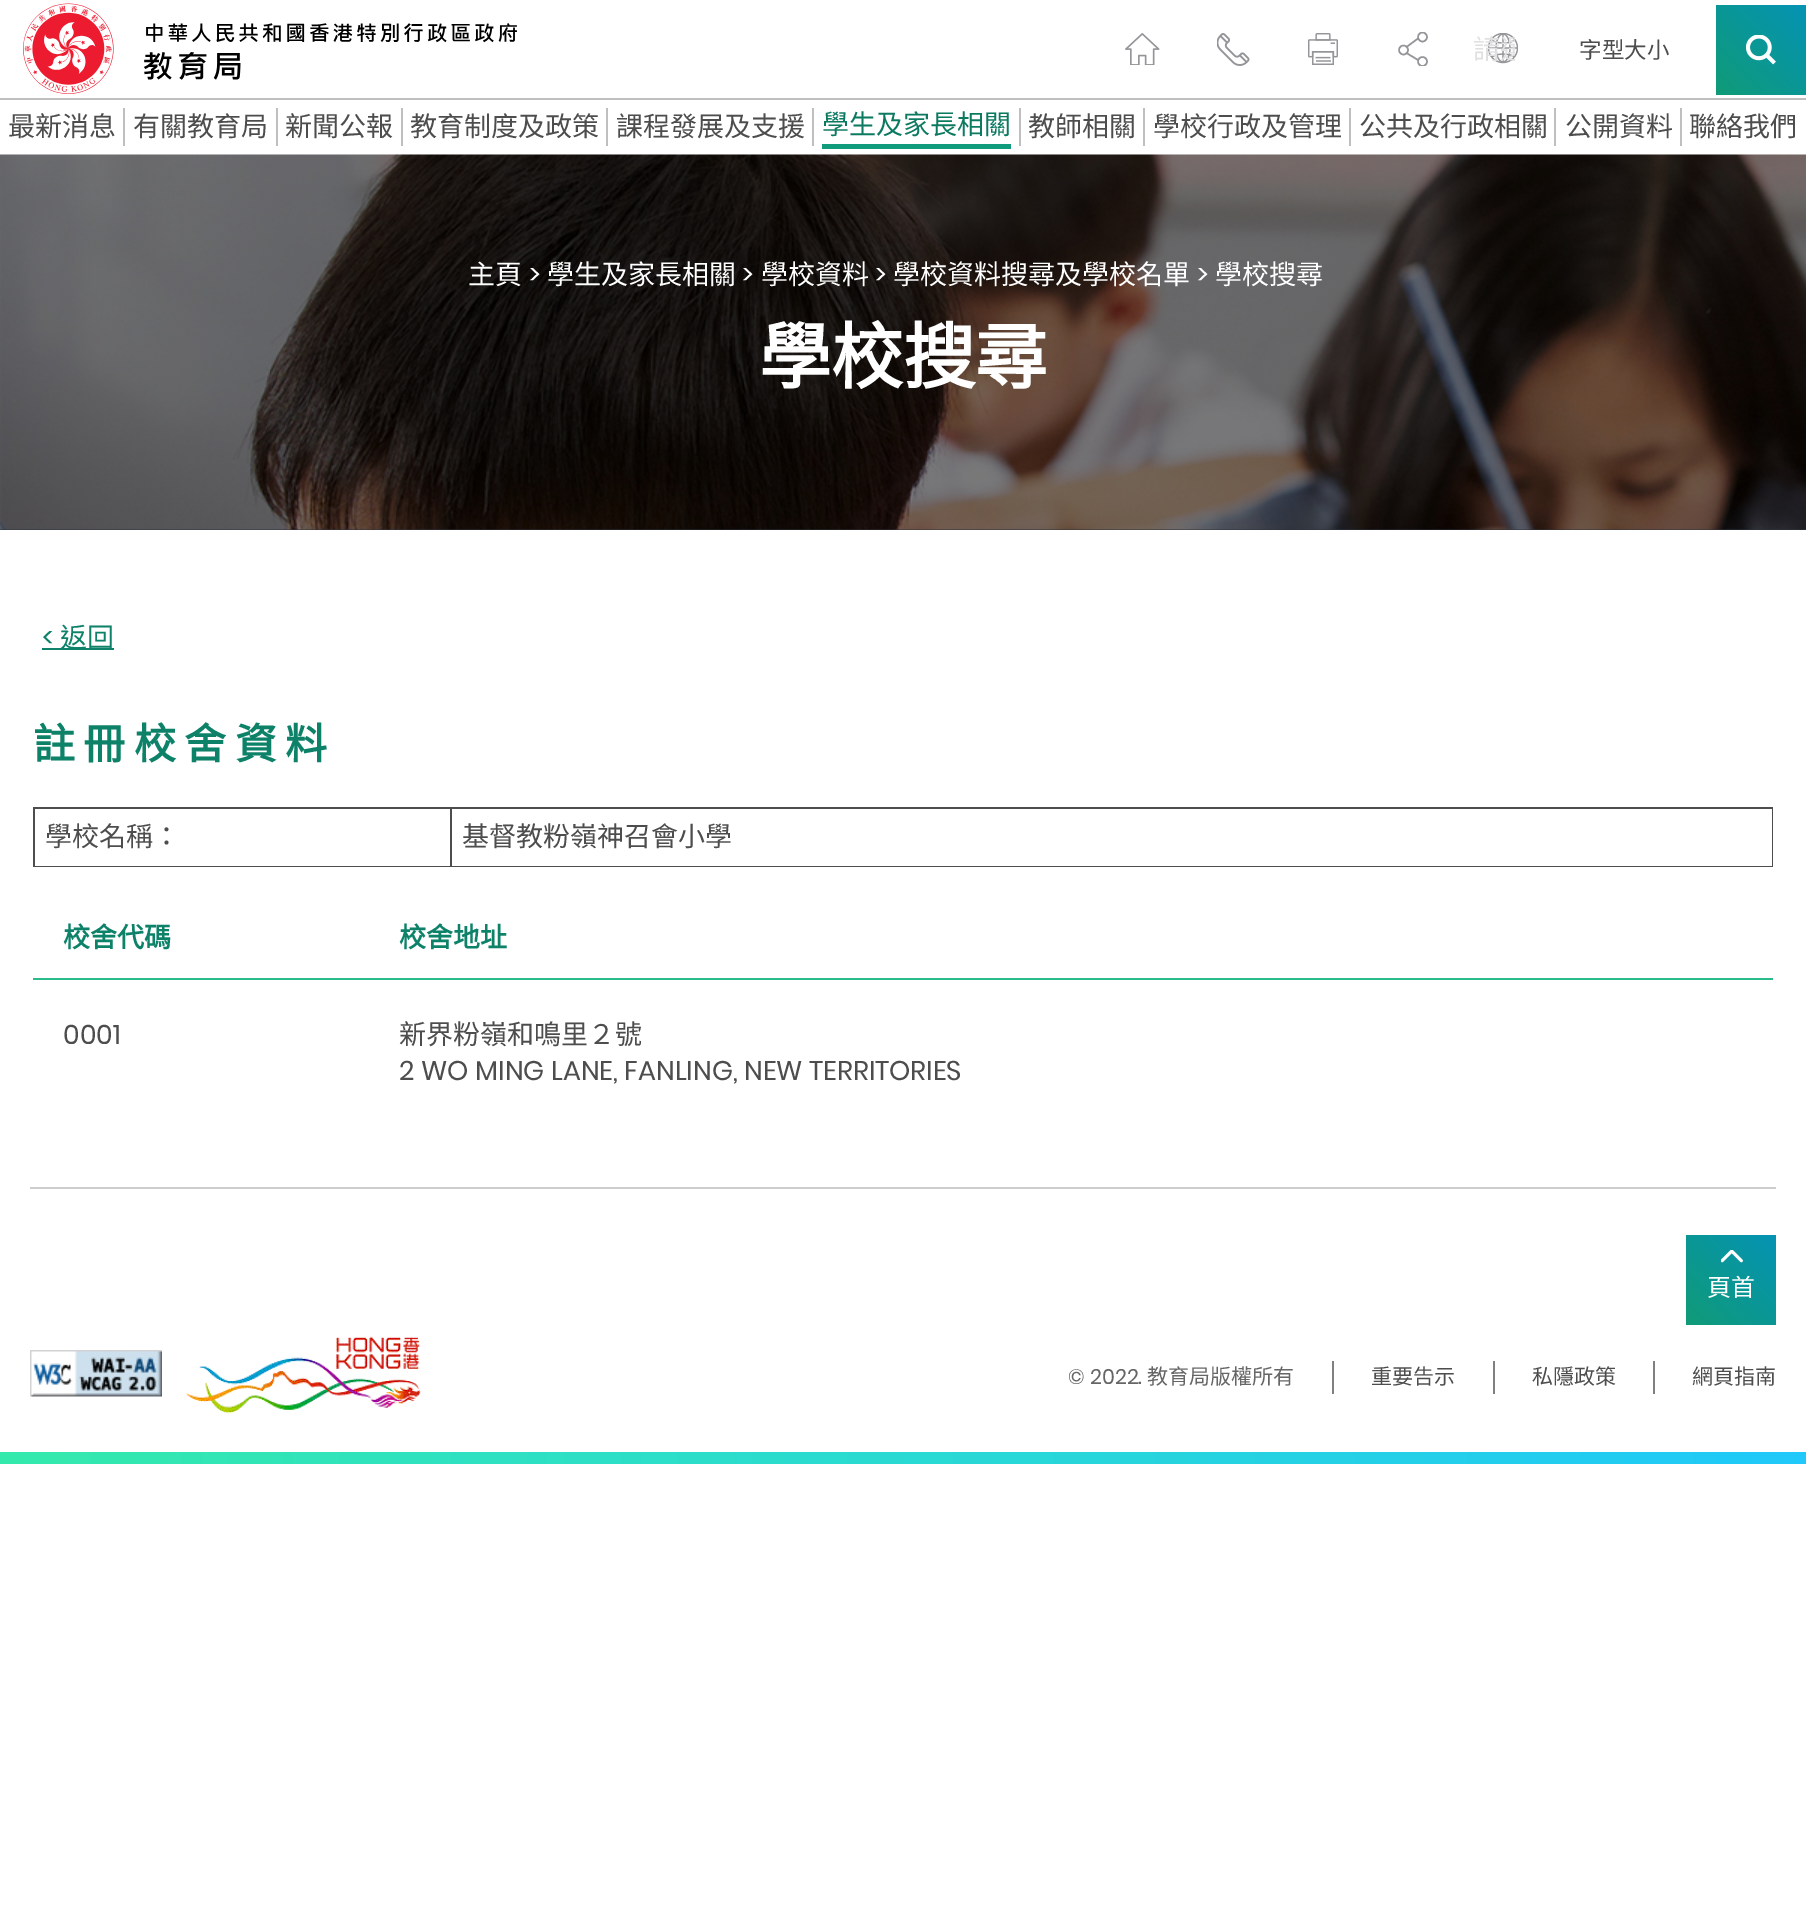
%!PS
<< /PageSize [1806 1906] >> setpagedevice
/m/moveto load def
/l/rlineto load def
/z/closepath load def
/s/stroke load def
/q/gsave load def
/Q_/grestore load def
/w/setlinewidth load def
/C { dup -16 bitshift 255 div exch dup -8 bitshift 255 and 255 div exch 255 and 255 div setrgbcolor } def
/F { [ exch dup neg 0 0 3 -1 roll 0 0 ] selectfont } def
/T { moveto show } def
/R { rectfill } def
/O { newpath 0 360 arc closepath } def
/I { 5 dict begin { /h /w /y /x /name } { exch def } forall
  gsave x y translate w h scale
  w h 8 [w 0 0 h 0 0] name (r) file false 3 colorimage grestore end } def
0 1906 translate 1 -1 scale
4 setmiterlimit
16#FFFFFF C
0 0 1806 1906 R
16#BFBFBF C
0 98 1806 2 R
(1.rgb) 23 3 494 91 I
(2.rgb) 1125 33 35 32 I
(3.rgb) 1217 33 33 33 I
(4.rgb) 1308 33 30 32 I
q
1398 32 30 34 rectclip
16#939598 C
1.5 w
1422.5 37 4.5 O s
1422.5 61.5 4.5 O s
Q_
16#939598 C
1.5 w
1403.5 50 4.5 O s
1418 38.5 m -11.5 8.5 l 1406.5 53 m 11.5 7 l s
(5.rgb) 1488 33 30 31 I
q
1473 29 42 40 rectclip
/NotoSansCJKHK-Regular 27 F
16#E0E0E1 C
(請選) 1473 59 T
Q_
/NotoSansCJKHK-Regular 22.5 F
16#4D4D4D C
(字型大小) 1579 58 T
q 1716 5 m 90 0 l 0 90 l -90 0 l z clip newpath
<< /ShadingType 2 /ColorSpace /DeviceRGB /Coords [1716 95 1806 4.5] /Extend [true true] /Function << /FunctionType 2 /Domain [0 1] /C0 [.063 .608 .467] /C1 [.02 .576 .706] /N 1 >> >> shfill Q_
(6.rgb) 1746 35 30 30 I
/NotoSansCJKHK-Regular 27 F
(最新消息) 8 136 T
16#BFBFBF C
123 108 2 38 R
16#4D4D4D C
(有關教育局) 133 136 T
16#BFBFBF C
276 108 2 38 R
16#4D4D4D C
(新聞公報) 285 136 T
16#BFBFBF C
401 108 2 38 R
16#4D4D4D C
(教育制度及政策) 410 136 T
16#BFBFBF C
606 108 2 38 R
16#4D4D4D C
(課程發展及支援) 616 136 T
16#BFBFBF C
812 108 2 38 R
16#0F9B7C C
822 144 189 5 R
16#0C7961 C
(學生及家長相關) 822 134 T
16#BFBFBF C
1019 108 2 38 R
16#4D4D4D C
(教師相關) 1028 136 T
16#BFBFBF C
1143 108 2 38 R
16#4D4D4D C
(學校行政及管理) 1153 136 T
16#BFBFBF C
1349 108 2 38 R
16#4D4D4D C
(公共及行政相關) 1359 136 T
16#BFBFBF C
1554 108 2 38 R
16#4D4D4D C
(公開資料) 1565 136 T
16#BFBFBF C
1680 108 2 38 R
16#4D4D4D C
(聯絡我們) 1689 136 T
16#2A3340 C
0 529 1806 1 R
(7.rgb) 0 154 1806 376 I
16#FFFFFF C
(主頁) 468 284 T
/Poppins-Regular 27 F
(>) 529 284 T
/NotoSansCJKHK-Regular 27 F
(學生及家長相關) 547 284 T
/Poppins-Regular 27 F
(>) 742 284 T
/NotoSansCJKHK-Regular 27 F
(學校資料) 761 284 T
/Poppins-Regular 27 F
(>) 875 284 T
/NotoSansCJKHK-Regular 27 F
(學校資料搜尋及學校名單) 893 284 T
/Poppins-Regular 27 F
(>) 1197 284 T
/NotoSansCJKHK-Regular 27 F
(學校搜尋) 1215 284 T
/NotoSansCJKHK-Bold 72 F
(學校搜尋) 759 383 T
/Poppins-Regular 27 F
16#0D8269 C
(<) 42 647 T
42 648 72 2 R
/NotoSansCJKHK-Regular 27 F
(返回) 60 647 T
/NotoSansCJKHK-Bold 42 F
33 759 m -1 0 32 (註 冊 校 舍 資 料) widthshow
16#4D4D4D C
450 807 1323 2 R
1772 807 1 60 R
450 866 1323 1 R
450 807 2 60 R
33 807 419 2 R
33 866 419 1 R
33 807 2 60 R
/NotoSansCJKHK-Regular 27 F
(學校名稱：) 45 846 T
(基督教粉嶺神召會小學) 462 846 T
16#29BC8A C
33 978 1740 2 R
/NotoSansCJKHK-Bold 27 F
16#0D8269 C
(校舍代碼) 63 947 T
(校舍地址) 399 947 T
/Poppins-Regular 27 F
16#4D4D4D C
(0001) 63 1044 T
/NotoSansCJKHK-Regular 27 F
(新界粉嶺和鳴里２號) 399 1044 T
/Poppins-Regular 27 F
(2 WO MING LANE, FANLING, NEW TERRITORIES) 399 1080 T
16#CDCDCD C
30 1187 1746 2 R
q 1686 1235 m 90 0 l 0 90 l -90 0 l z clip newpath
<< /ShadingType 2 /ColorSpace /DeviceRGB /Coords [1686 1325 1776 1235] /Extend [true true] /Function << /FunctionType 2 /Domain [0 1] /C0 [.063 .608 .467] /C1 [.02 .576 .706] /N 1 >> >> shfill Q_
(8.rgb) 1721 1250 22 13 I
/NotoSansCJKHK-Regular 24 F
16#FFFFFF C
(頁首) 1707 1296 T
(9.rgb) 30 1350 132 47 I
(10.rgb) 186 1336 235 78 I
16#808080 C
1332 1361 2 33 R
/Poppins-Regular 21 F
16#666666 C
(© 2022.) 1068 1384 T
/NotoSansCJKHK-Regular 21 F
(教育局版權所有) 1147 1384 T
16#808080 C
1493 1361 2 33 R
16#4D4D4D C
(重要告示) 1371 1384 T
16#808080 C
1653 1361 2 33 R
16#4D4D4D C
(私隱政策) 1532 1384 T
(網頁指南) 1692 1384 T
q 0 1452 m 1806 0 l 0 12 l -1806 0 l z clip newpath
<< /ShadingType 2 /ColorSpace /DeviceRGB /Coords [0 1458 1806 1458] /Extend [true true] /Function << /FunctionType 2 /Domain [0 1] /C0 [.208 .918 .675] /C1 [.125 .788 .98] /N 1 >> >> shfill Q_
showpage
